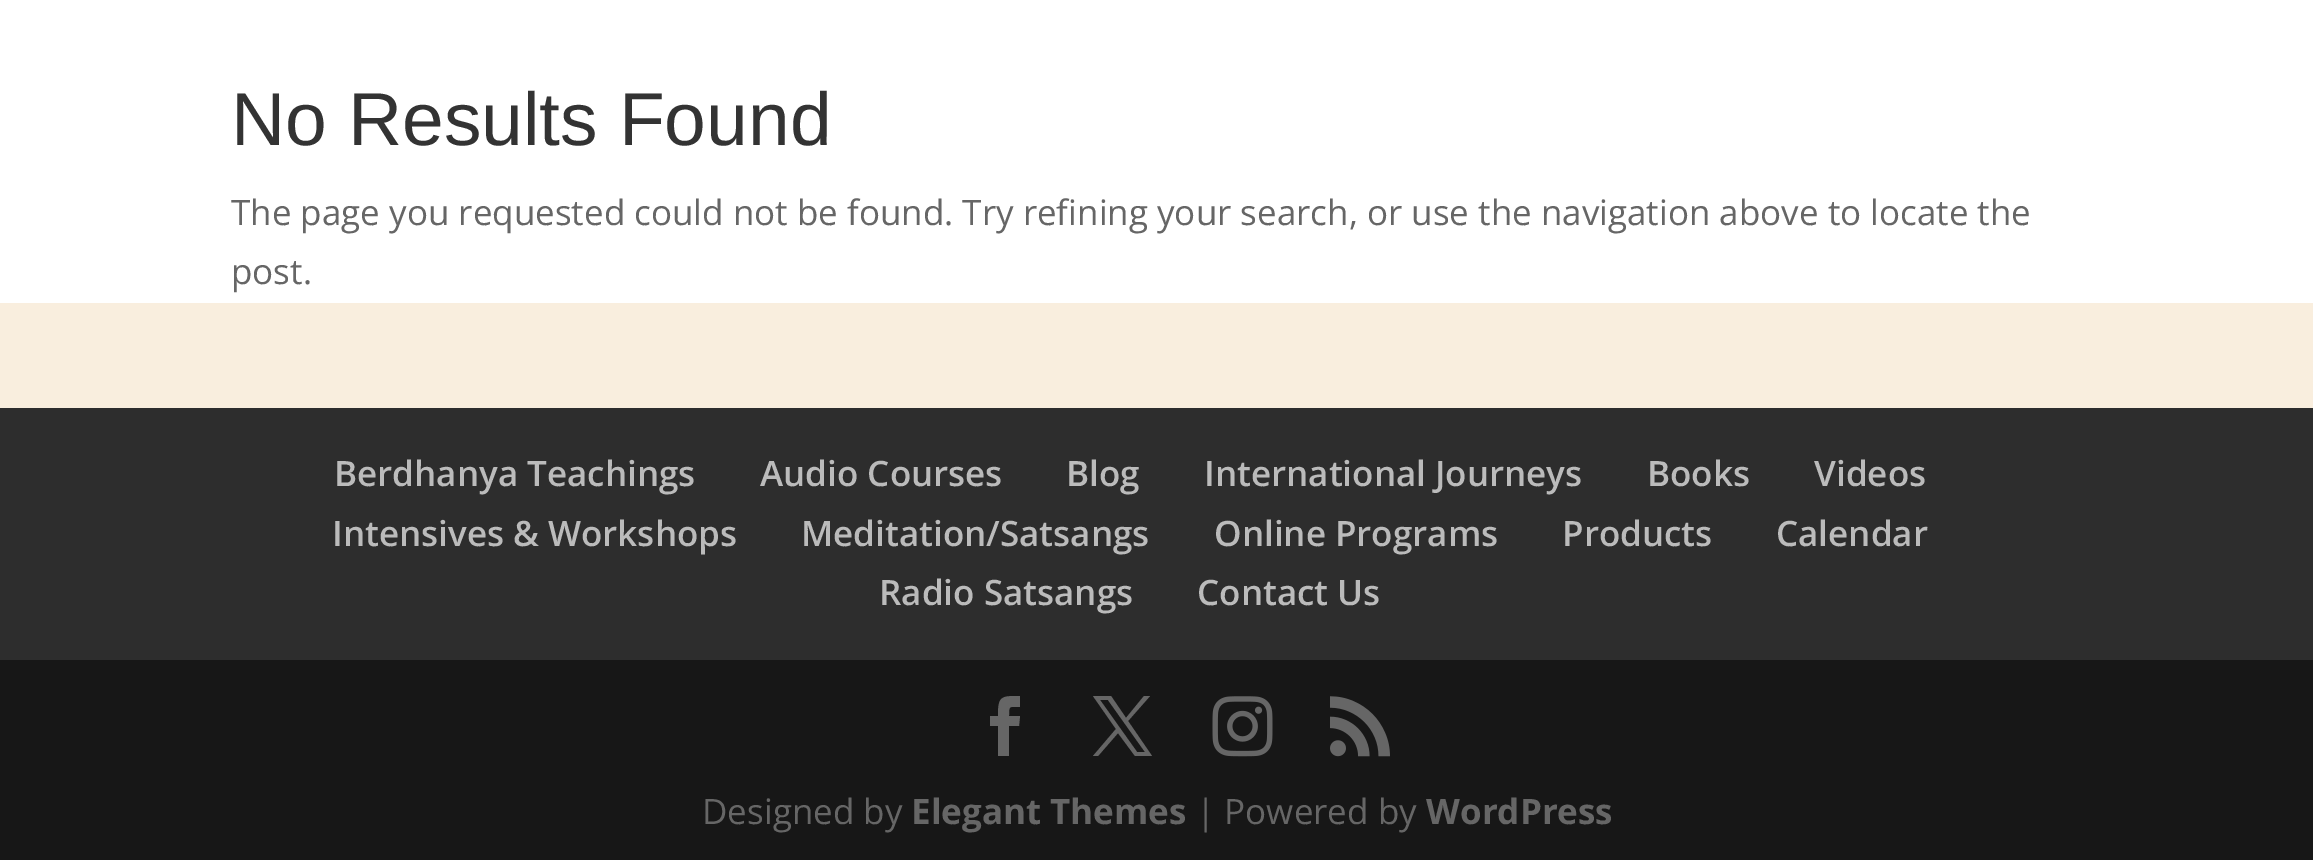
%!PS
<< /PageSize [2313 860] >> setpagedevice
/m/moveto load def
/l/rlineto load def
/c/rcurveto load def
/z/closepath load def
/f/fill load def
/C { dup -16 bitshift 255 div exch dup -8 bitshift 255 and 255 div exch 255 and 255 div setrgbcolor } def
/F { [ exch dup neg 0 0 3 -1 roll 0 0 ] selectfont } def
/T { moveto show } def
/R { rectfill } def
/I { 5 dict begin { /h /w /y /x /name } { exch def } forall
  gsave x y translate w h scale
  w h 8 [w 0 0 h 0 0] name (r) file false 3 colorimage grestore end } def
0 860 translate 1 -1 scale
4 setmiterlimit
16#F9EEDE C
0 0 2313 860 R
16#FFFFFF C
0 0 2313 303 R
/LiberationSans-Regular 75 F
16#333333 C
(No Results Found) 231 145 T
/OpenSans-Regular 35 F
16#666666 C
(The page you requested could not be found. Try refining your search, or use the navigation above to locate the) 231 225 T
(post.) 231 284 T
16#2D2D2D C
0 408 2313 252 R
/OpenSans-SemiBold 35 F
16#BBBBBB C
(Berdhanya Teachings) 334 486 T
(Audio Courses) 760 486 T
(Blog) 1066 486 T
(International Journeys) 1204 486 T
(Books) 1647 486 T
(Videos) 1814 486 T
(Intensives & Workshops) 332 546 T
(Meditation/Satsangs) 801 546 T
(Online Programs) 1214 546 T
(Products) 1562 546 T
(Calendar) 1776 546 T
(Radio Satsangs) 879 605 T
(Contact Us) 1197 605 T
16#171717 C
0 660 2313 200 R
16#666666 C
998 756 m 11 0 l 0 -30 l 10 0 l 1 -10 l -11 0 l 0 -11 0 -9 11 -9 c 0 -11 l -19 0 -22 0 -22 20 c -8 0 l 0 10 l 8 0 l z f
1093 696 m 23 33 l -23 27 l 5 0 l 20 -23 l 17 23 l 17 0 l -24 -35 l 22 -25 l -6 0 l -18 22 l -15 -22 l z 1100 700 m 8 0 l 37 52 l -8 0 l z f
(1.rgb) 1212 696 61 61 I
(2.rgb) 1330 696 60 61 I
/OpenSans-Regular 35 F
(Designed by) 702 824 T
/OpenSans-Bold 35 F
(Elegant Themes) 911 824 T
/OpenSans-Regular 35 F
(| Powered by) 1196 824 T
/OpenSans-Bold 35 F
(WordPress) 1426 824 T
showpage
